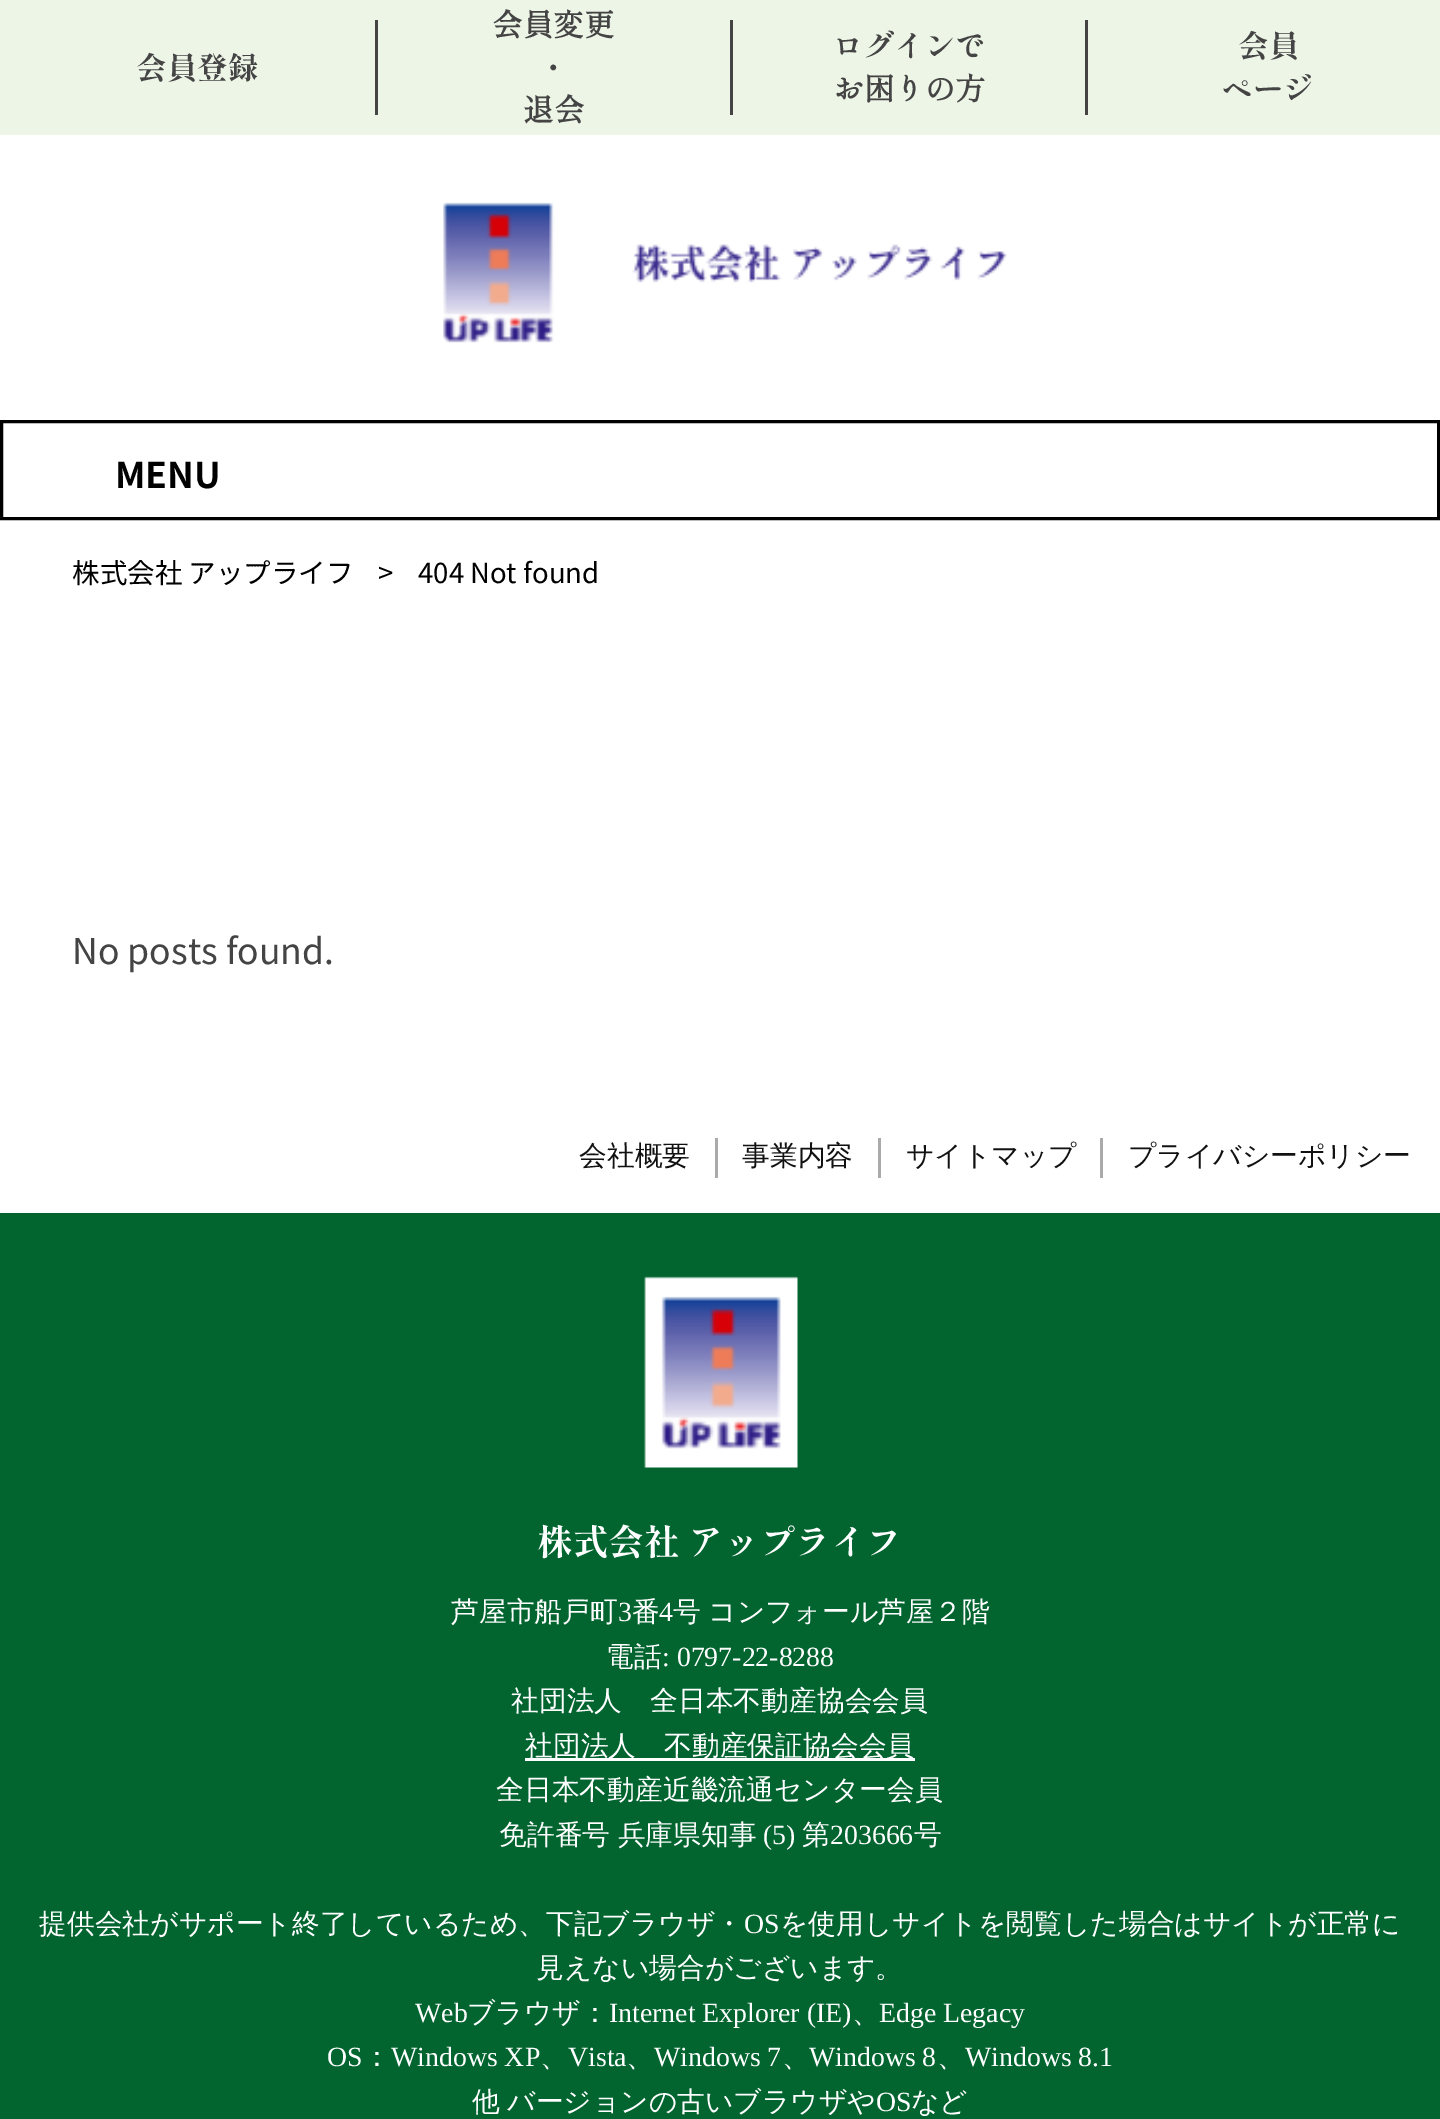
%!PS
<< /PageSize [1440 2119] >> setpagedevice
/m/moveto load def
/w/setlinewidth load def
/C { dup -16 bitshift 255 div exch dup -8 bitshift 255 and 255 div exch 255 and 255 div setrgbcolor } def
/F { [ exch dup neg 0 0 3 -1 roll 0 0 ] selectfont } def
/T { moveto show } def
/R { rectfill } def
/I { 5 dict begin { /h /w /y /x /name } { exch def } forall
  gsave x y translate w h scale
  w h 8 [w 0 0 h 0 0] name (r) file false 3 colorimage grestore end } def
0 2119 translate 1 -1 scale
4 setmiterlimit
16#FFFFFF C
0 0 1440 2119 R
16#EDF5E7 C
0 0 1440 135 R
/ShipporiMincho-Bold 30.5 F
16#444444 C
(会員登録) 136 79 T
375 20 3 95 R
/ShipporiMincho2-Bold 30.5 F
(会員変更) 492 36 T
/ShipporiMincho-Bold 30.5 F
(・) 538 79 T
/ShipporiMincho2-Bold 30.5 F
(退会) 523 121 T
730 20 3 95 R
/ShipporiMincho-Bold 30.5 F
(ログインで) 833 57 T
/ShipporiMincho2-Bold 30.5 F
(お困りの方) 833 100 T
1085 20 3 95 R
/ShipporiMincho-Bold 30.5 F
(会員) 1238 57 T
(ページ) 1222 100 T
(1.rgb) 443 202 564 141 I
16#000000 C
3 w
1.5 421.5 1437 97 rectstroke
/NotoSansJP-Bold 35.6 F
(MENU) 115 488 T
/NotoSansJP-Regular 27.5 F
(株式会社 アップライフ) 72 583 T
(>) 378 583 T
(404 Not found) 418 583 T
/NotoSansJP-Regular 35.6 F
16#444444 C
(No posts found.) 72 964 T
16#02642F C
0 1213 1440 906 R
/WenQuanYiZenHei-Medium 27.8 F
16#111111 C
(会社概要) 579 1165 T
16#AAAAAA C
715 1138 3 40 R
16#111111 C
(事業内容) 742 1165 T
16#AAAAAA C
878 1138 3 40 R
16#111111 C
(サイトマップ) 906 1165 T
16#AAAAAA C
1100 1138 3 40 R
16#111111 C
(プライバシーポリシー) 1128 1165 T
(2.rgb) 644 1276 154 192 I
/ShipporiMincho-Bold 35.6 F
16#FFFFFF C
(株式会社 アップライフ) 537 1555 T
/WenQuanYiZenHei-Medium 27.8 F
(芦屋市船戸町) 451 1621 T
/LiberationSerif-Regular 27.8 F
(3) 618 1621 T
/WenQuanYiZenHei-Medium 27.8 F
(番) 632 1621 T
/LiberationSerif-Regular 27.8 F
(4) 659 1621 T
/WenQuanYiZenHei-Medium 27.8 F
673 1621 m -1 0 32 (号 コンフォール芦屋２階) widthshow
(電話) 606 1666 T
/LiberationSerif-Regular 27.8 F
(: 0797-22-8288) 662 1666 T
/WenQuanYiZenHei-Medium 27.8 F
(社団法人　全日本不動産協会会員) 511 1710 T
525 1758 390 3 R
(社団法人　不動産保証協会会員) 525 1755 T
(全日本不動産近畿流通センター会員) 496 1799 T
499 1844 m -1 0 32 (免許番号 兵庫県知事) widthshow
/LiberationSerif-Regular 27.8 F
(\(5\)) 763 1844 T
/WenQuanYiZenHei-Medium 27.8 F
(第) 802 1844 T
/LiberationSerif-Regular 27.8 F
(203666) 830 1844 T
/WenQuanYiZenHei-Medium 27.8 F
(号) 914 1844 T
(提供会社がサポート終了しているため、下記ブラウザ・) 39 1933 T
/LiberationSerif-Regular 27.8 F
(OS) 744 1933 T
/WenQuanYiZenHei-Medium 27.8 F
(を使用しサイトを閲覧した場合はサイトが正常に) 780 1933 T
(見えない場合がございます。) 536 1977 T
/LiberationSerif-Regular 27.8 F
(Web) 415 2022 T
/WenQuanYiZenHei-Medium 27.8 F
(ブラウザ：) 467 2022 T
/LiberationSerif-Regular 27.8 F
(Internet Explorer \(IE\)) 609 2022 T
/WenQuanYiZenHei-Medium 27.8 F
(、) 852 2022 T
/LiberationSerif-Regular 27.8 F
(Edge Legacy) 879 2022 T
(OS) 327 2066 T
/WenQuanYiZenHei-Medium 27.8 F
(：) 363 2066 T
/LiberationSerif-Regular 27.8 F
(Windows XP) 391 2066 T
/WenQuanYiZenHei-Medium 27.8 F
(、) 540 2066 T
/LiberationSerif-Regular 27.8 F
(Vista) 568 2066 T
/WenQuanYiZenHei-Medium 27.8 F
(、) 626 2066 T
/LiberationSerif-Regular 27.8 F
(Windows 7) 654 2066 T
/WenQuanYiZenHei-Medium 27.8 F
(、) 782 2066 T
/LiberationSerif-Regular 27.8 F
(Windows 8) 809 2066 T
/WenQuanYiZenHei-Medium 27.8 F
(、) 937 2066 T
/LiberationSerif-Regular 27.8 F
(Windows 8.1) 965 2066 T
/WenQuanYiZenHei-Medium 27.8 F
472 2111 m -1 0 32 (他 バージョンの古いブラウザや) widthshow
/LiberationSerif-Regular 27.8 F
(OS) 876 2111 T
/WenQuanYiZenHei-Medium 27.8 F
(など) 911 2111 T
showpage
